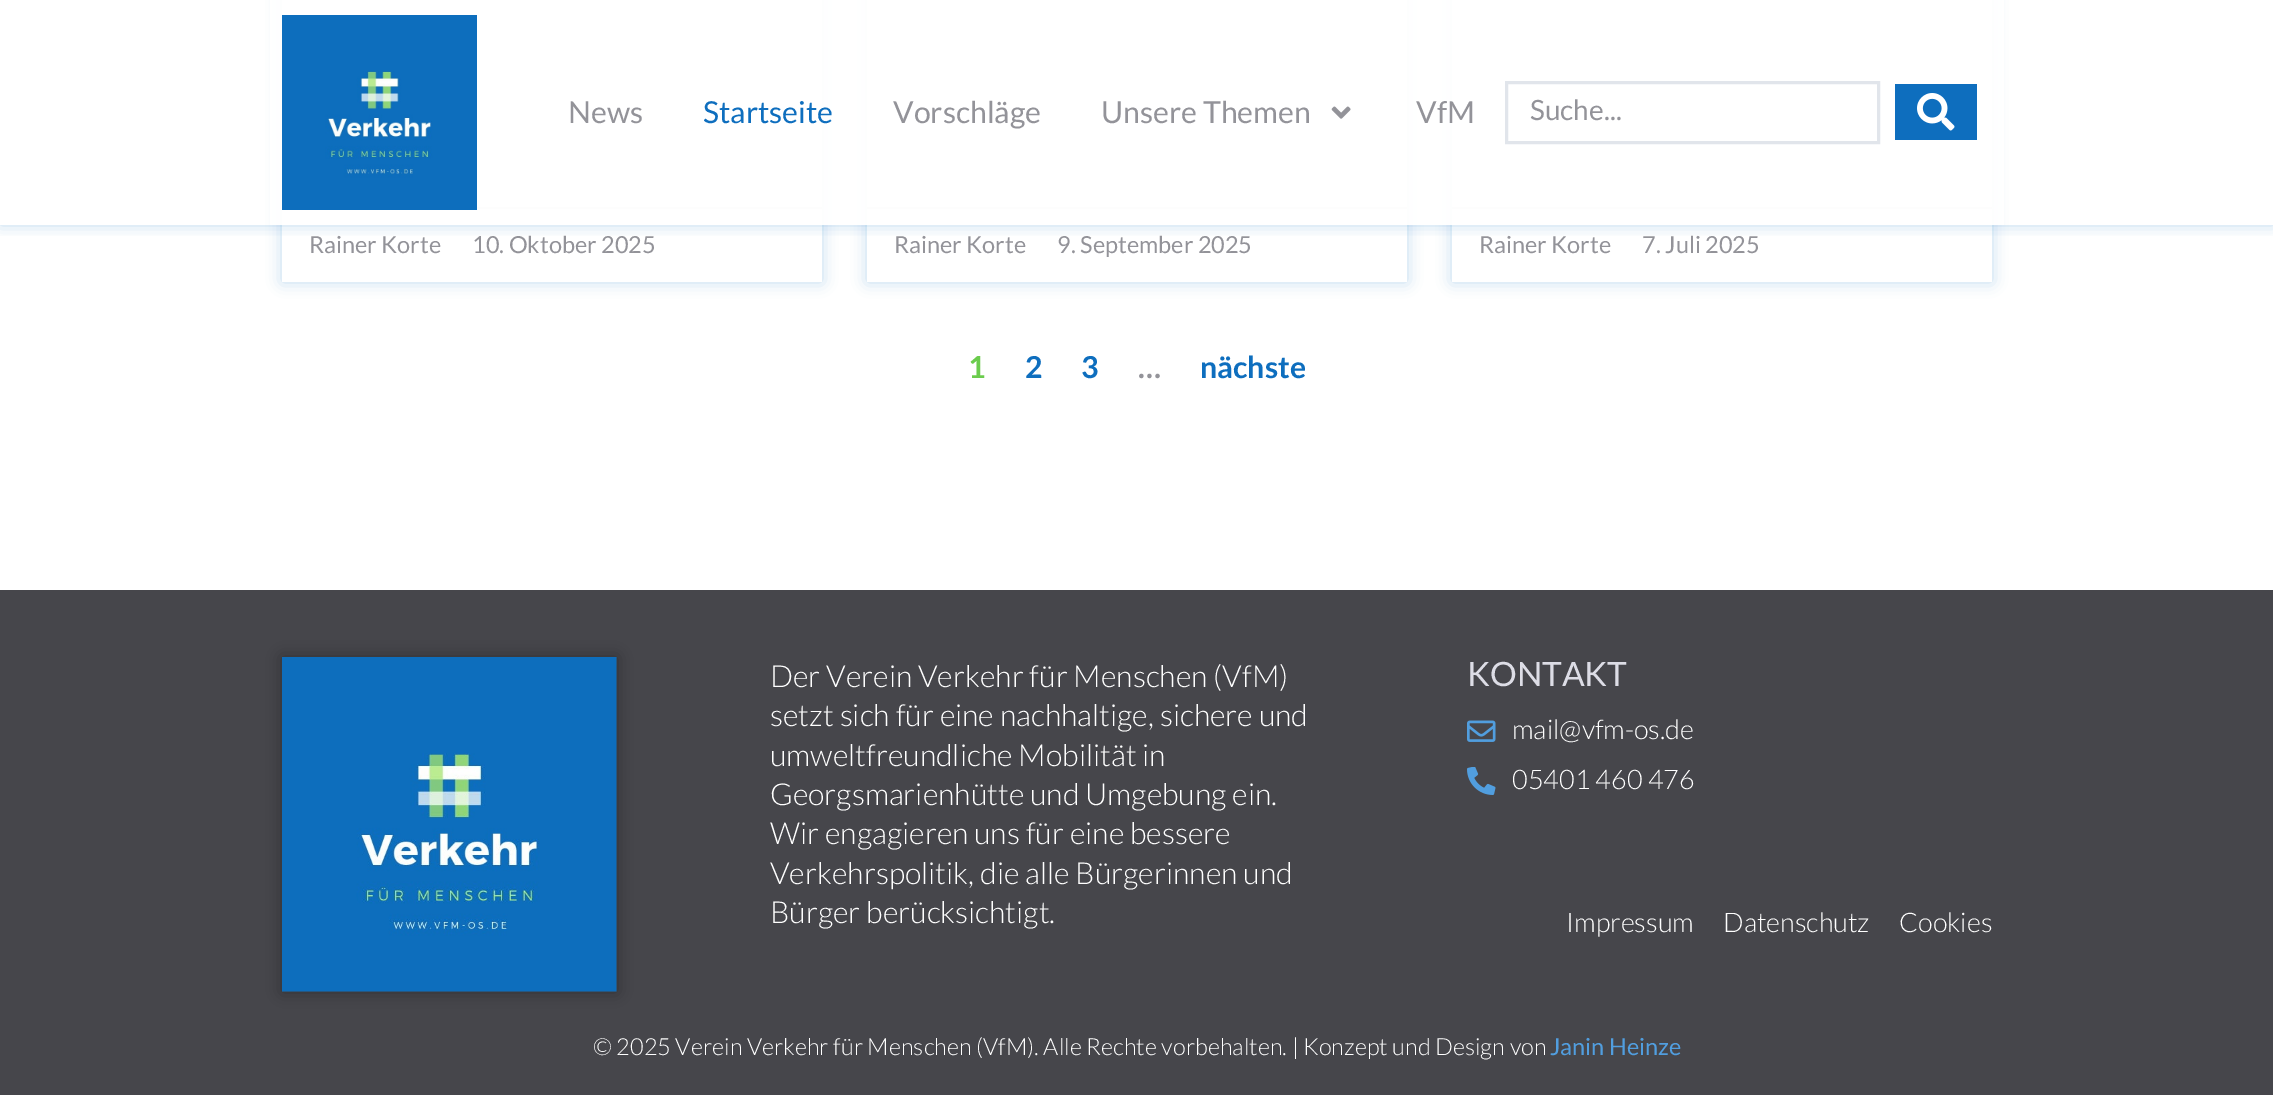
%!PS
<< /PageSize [2273 1095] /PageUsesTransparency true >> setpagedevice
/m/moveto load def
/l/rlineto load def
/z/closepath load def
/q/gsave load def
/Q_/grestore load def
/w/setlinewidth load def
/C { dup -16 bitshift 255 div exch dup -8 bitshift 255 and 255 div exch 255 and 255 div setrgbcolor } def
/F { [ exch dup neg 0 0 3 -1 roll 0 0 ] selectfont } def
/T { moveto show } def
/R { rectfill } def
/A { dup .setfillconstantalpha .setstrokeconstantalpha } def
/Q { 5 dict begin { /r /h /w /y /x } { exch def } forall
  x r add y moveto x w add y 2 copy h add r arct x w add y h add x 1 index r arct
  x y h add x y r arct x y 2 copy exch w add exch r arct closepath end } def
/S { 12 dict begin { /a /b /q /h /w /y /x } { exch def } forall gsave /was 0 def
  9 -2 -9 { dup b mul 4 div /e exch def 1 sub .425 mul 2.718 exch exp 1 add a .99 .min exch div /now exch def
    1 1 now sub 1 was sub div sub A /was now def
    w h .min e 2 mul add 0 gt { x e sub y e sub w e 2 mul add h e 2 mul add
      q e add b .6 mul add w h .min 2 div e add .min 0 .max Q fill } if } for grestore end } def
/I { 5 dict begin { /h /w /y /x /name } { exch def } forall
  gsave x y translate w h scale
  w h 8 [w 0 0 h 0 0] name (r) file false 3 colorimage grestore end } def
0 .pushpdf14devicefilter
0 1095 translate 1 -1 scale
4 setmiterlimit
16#FFFFFF C
0 0 2273 1095 R
q
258 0 m 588 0 l 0 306 l -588 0 l z 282 -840 m 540 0 l 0 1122 l -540 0 l z eoclip newpath
16#0E6EBE C
282 -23 540 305 0 7.5 .25 S
Q_
16#DDDDE6 C
477 207 345 2 R
q
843 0 m 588 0 l 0 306 l -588 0 l z 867 -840 m 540 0 l 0 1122 l -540 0 l z eoclip newpath
16#0E6EBE C
867 -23 540 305 0 7.5 .25 S
Q_
867 207 540 2 R
q
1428 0 m 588 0 l 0 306 l -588 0 l z 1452 -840 m 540 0 l 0 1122 l -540 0 l z eoclip newpath
16#0E6EBE C
1452 -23 540 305 0 7.5 .25 S
Q_
1452 207 540 2 R
q
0 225 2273 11 rectclip
16#0E6EBE C
0 0 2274 225 0 7.5 .25 S
Q_
0.93 A
16#FFFFFF C
270 0 1734 225 R
1 A
(1.rgb) 282 15 195 195 I
/Lato-Regular 30.25 F
16#939399 C
(News) 568 123 T
16#0E6EBE C
(Startseite) 703 123 T
16#939399 C
(Vorschläge) 893 123 T
(Unsere Themen) 1101 123 T
(2.rgb) 1331 106 20 13 I
(VfM) 1416 123 T
16#E1E5EB C
3 w
1506.5 82.5 372 60 rectstroke
/Lato-Regular 28 F
16#939399 C
(Suche...) 1530 120 T
16#0E6EBE C
1895 84 82 56 R
(3.rgb) 1917 93 38 38 I
/Lato-Regular 23.5 F
16#939399 C
(Rainer Korte) 309 253 T
(10. Oktober 2025) 472 253 T
(Rainer Korte) 894 253 T
(9. September 2025) 1057 253 T
(Rainer Korte) 1479 253 T
(7. Juli 2025) 1642 253 T
/Lato-Bold 30.25 F
16#6BCC4D C
(1) 968 378 T
16#0E6EBE C
(2) 1025 378 T
(3) 1081 378 T
16#939399 C
(…) 1138 378 T
16#0E6EBE C
(nächste) 1200 378 T
16#46464B C
0 590 2273 505 R
16#000000 C
282 657 335 335 0 7.5 .32 S
(4.rgb) 282 657 335 335 I
/Lato-Light 30.25 F
16#FFFFFF C
(Der Verein Verkehr für Menschen \(VfM\)) 770 687 T
(setzt sich für eine nachhaltige, sichere und) 770 726 T
(umweltfreundliche Mobilität in) 770 766 T
(Georgsmarienhütte und Umgebung ein.) 770 805 T
(Wir engagieren uns für eine bessere) 770 844 T
(Verkehrspolitik, die alle Bürgerinnen und) 770 884 T
(Bürger berücksichtigt.) 770 923 T
/Lato-Regular 33.5 F
16#DDDDE6 C
(KONTAKT) 1467 686 T
(5.rgb) 1467 720 29 22 I
/Lato-Light 27 F
16#FFFFFF C
(mail@vfm-os.de) 1512 739 T
(6.rgb) 1467 767 29 28 I
(05401 460 476) 1512 789 T
(Impressum) 1566 932 T
(Datenschutz) 1723 932 T
(Cookies) 1899 932 T
/Lato-Light 23.5 F
(© 2025 Verein Verkehr für Menschen \(VfM\). Alle Rechte vorbehalten. | Konzept und Design von) 593 1055 T
/Lato-Regular 23.5 F
16#519EDF C
(Janin Heinze) 1550 1055 T
.poppdf14devicefilter showpage
